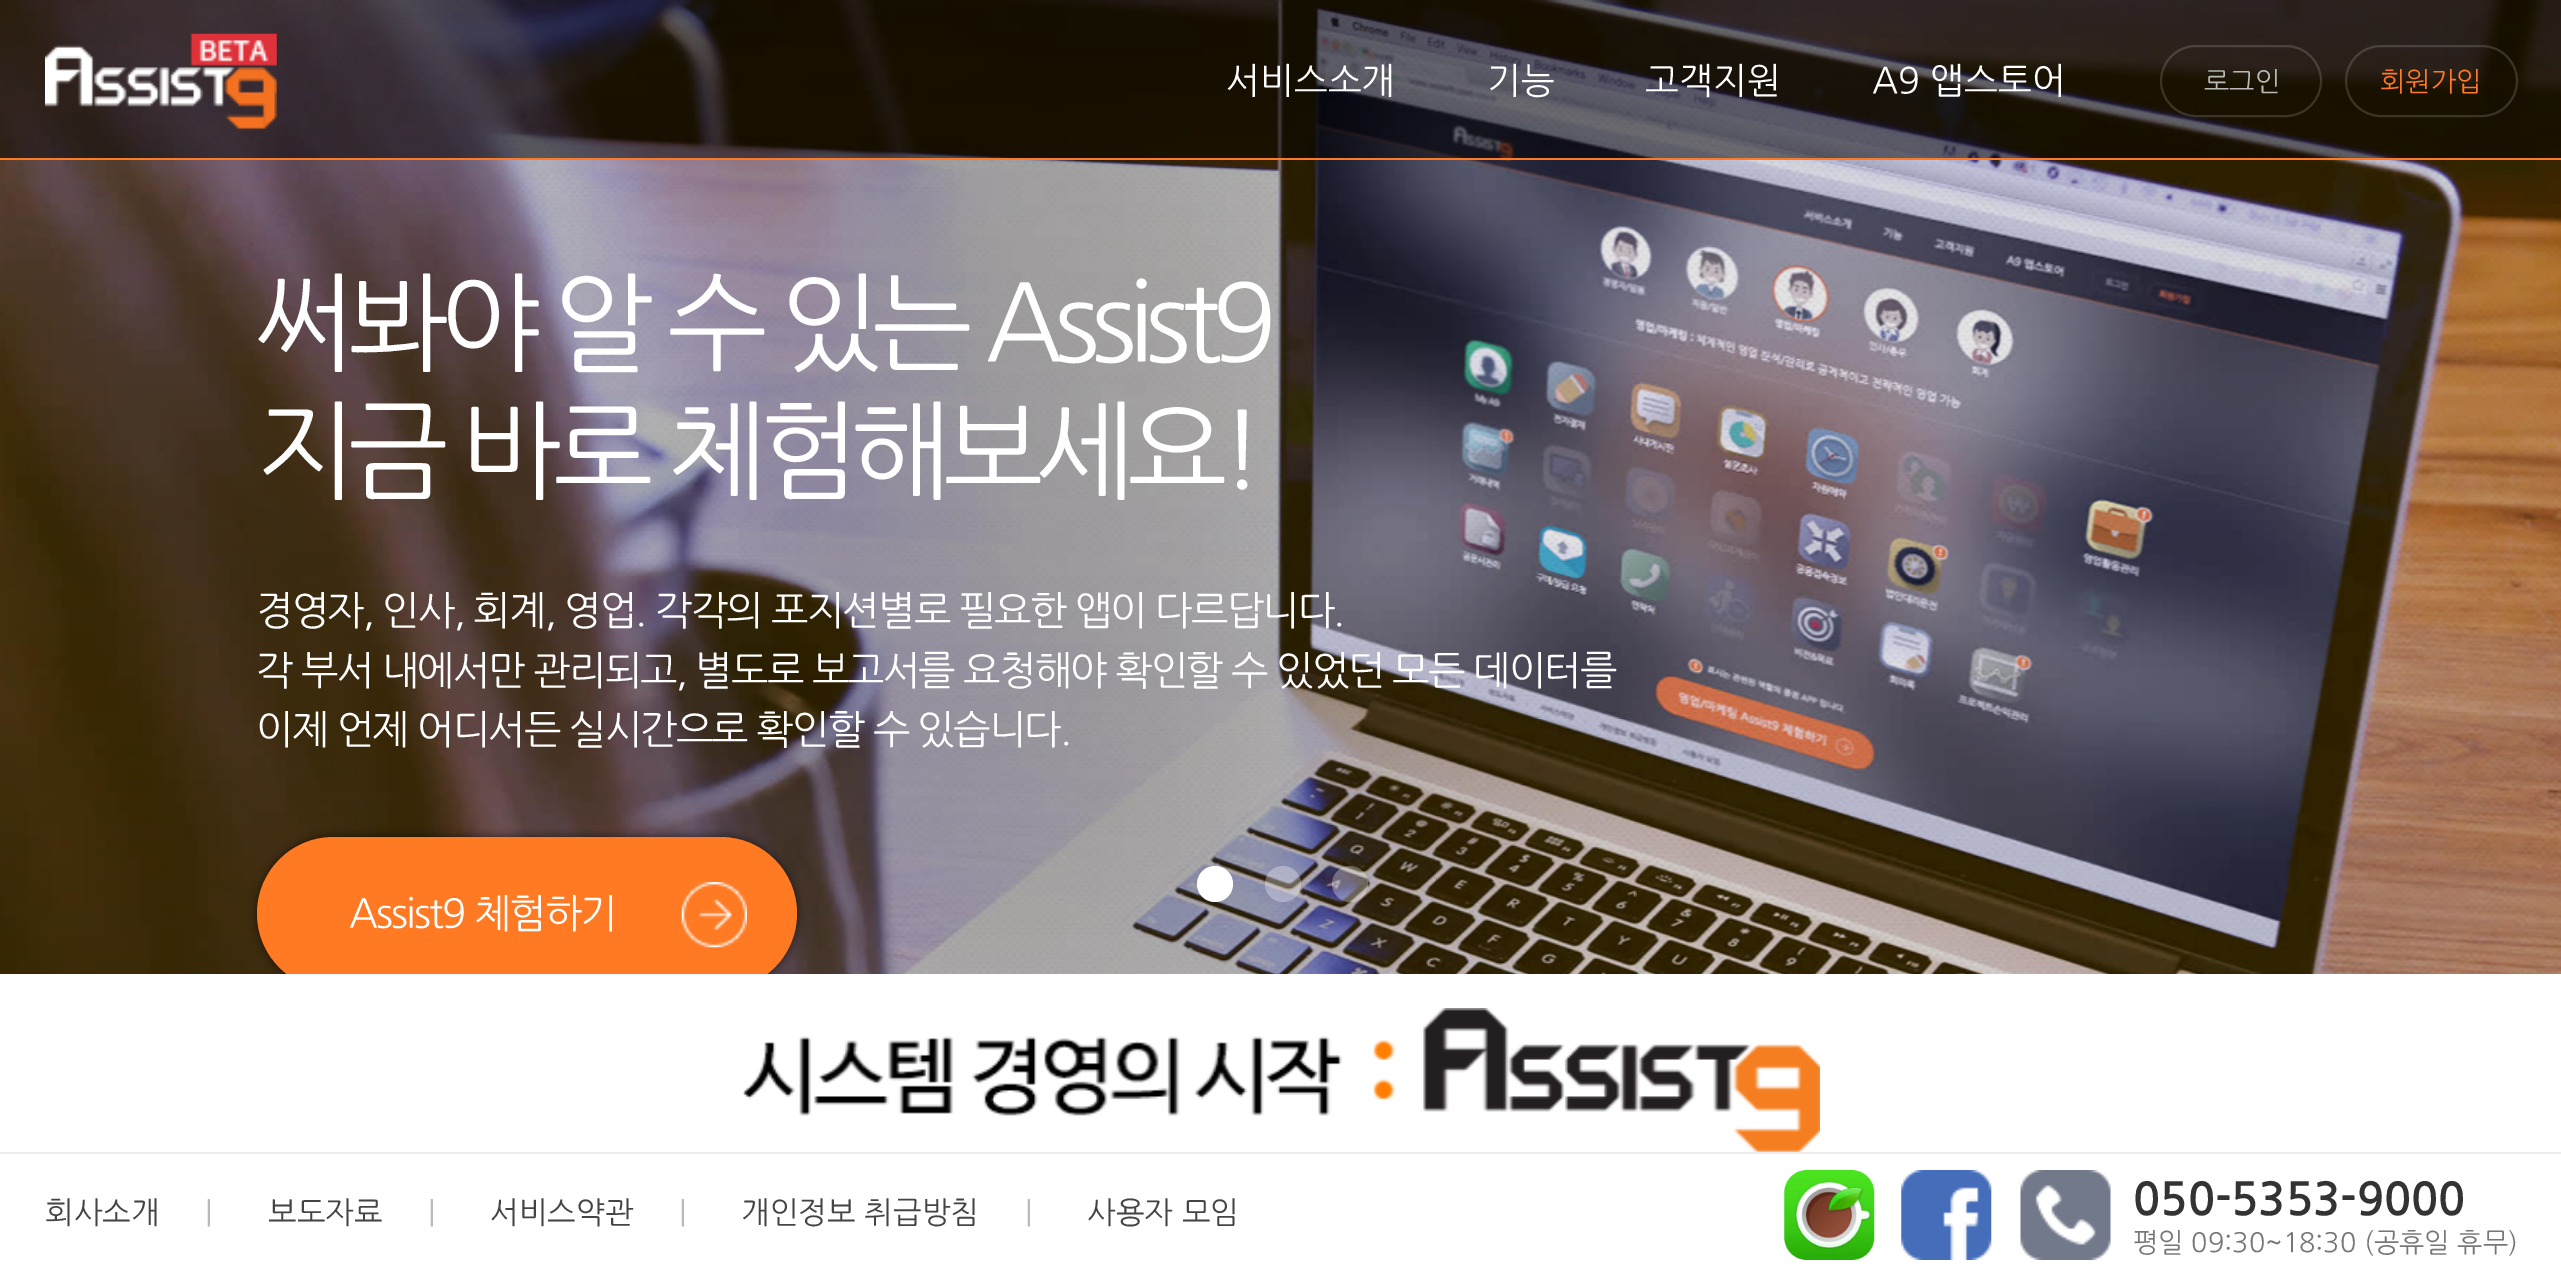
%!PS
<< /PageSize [2561 1277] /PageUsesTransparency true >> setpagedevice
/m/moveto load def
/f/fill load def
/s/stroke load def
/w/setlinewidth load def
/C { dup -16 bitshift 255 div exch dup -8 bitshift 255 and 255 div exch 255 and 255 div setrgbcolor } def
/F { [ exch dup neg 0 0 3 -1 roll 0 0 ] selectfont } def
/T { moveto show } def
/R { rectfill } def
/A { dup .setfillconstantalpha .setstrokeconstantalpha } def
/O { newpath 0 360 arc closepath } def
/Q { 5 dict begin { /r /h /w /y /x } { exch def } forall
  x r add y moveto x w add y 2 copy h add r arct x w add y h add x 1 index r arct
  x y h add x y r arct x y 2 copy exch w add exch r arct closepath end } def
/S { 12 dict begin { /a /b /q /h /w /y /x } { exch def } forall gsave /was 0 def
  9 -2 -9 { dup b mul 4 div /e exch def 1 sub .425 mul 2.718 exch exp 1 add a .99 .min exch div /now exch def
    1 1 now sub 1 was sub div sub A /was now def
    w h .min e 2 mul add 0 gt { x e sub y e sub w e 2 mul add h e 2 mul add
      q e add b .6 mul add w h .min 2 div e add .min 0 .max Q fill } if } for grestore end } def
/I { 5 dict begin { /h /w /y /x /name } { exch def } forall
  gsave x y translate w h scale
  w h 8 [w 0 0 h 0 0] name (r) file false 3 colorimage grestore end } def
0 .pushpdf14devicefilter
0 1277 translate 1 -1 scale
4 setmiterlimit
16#FFFFFF C
0 0 2561 1277 R
(2.rgb) 0 0 2561 974 I
0.5 A
16#000000 C
0 0 2561 158 R
1 A
16#FF7A24 C
0 158 2561 2 R
(1.rgb) 45 33 232 98 I
/NanumGothic-Regular 36 F
16#FFFFFF C
(서비스소개) 1226 92 T
(기능) 1487 92 T
(고객지원) 1645 92 T
(A9 앱스토어) 1872 92 T
0.15 A
2 w
2161 46 160 70 35 Q s
/NanumGothic-Regular 27 F
1 A
16#B9B9B9 C
(로그인) 2204 90 T
0.15 A
16#FFFFFF C
2346 46 171 70 35 Q s
1 A
16#FF7A24 C
(회원가입) 2380 90 T
/NanumGothic-Regular 107 F
16#FFFFFF C
256 357 m -8.6 0 (써봐야 알 수 있는 Assist9) ashow
256 485 m -8.6 0 (지금 바로 체험해보세요!) ashow
/NanumGothic-Regular 39.8 F
256 623 m -1.8 0 (경영자, 인사, 회계, 영업. 각각의 포지션별로 필요한 앱이 다르답니다.) ashow
256 683 m -1.8 0 (각 부서 내에서만 관리되고, 별도로 보고서를 요청해야 확인할 수 있었던 모든 데이터를) ashow
256 742 m -1.8 0 (이제 언제 어디서든 실시간으로 확인할 수 있습니다.) ashow
16#000000 C
257 837 540 153 76.5 4.5 .6 S
16#FF7A23 C
257 837 540 153 76.5 Q f
(3.rgb) 681 882 66 66 I
16#FFFFFF C
349 926 m -1.8 0 (Assist9 체험하기) ashow
1215 884 18 O f
0.3 A
1283 884 18 O f
1350 884 18 O f
1 A
273 974 508 26 R
(4.rgb) 743 1008 1077 144 I
16#EEEEEE C
0 1152 2561 2 R
/NanumGothic-Regular 30.5 F
16#444444 C
(회사소개) 45 1222 T
16#B9B9B9 C
(|) 205 1222 T
16#444444 C
(보도자료) 268 1222 T
16#B9B9B9 C
(|) 428 1222 T
16#444444 C
(서비스약관) 490 1222 T
16#B9B9B9 C
(|) 679 1222 T
16#444444 C
(개인정보 취급방침) 741 1222 T
16#B9B9B9 C
(|) 1025 1222 T
16#444444 C
(사용자 모임) 1087 1222 T
(5.rgb) 1784 1170 91 90 I
(6.rgb) 1901 1170 91 90 I
(7.rgb) 2020 1170 91 90 I
/NanumGothic-Bold 45 F
16#333333 C
(050-5353-9000) 2133 1213 T
/NanumGothic-Regular 27 F
16#777777 C
(평일 09:30~18:30 \(공휴일 휴무\)) 2133 1251 T
.poppdf14devicefilter showpage
